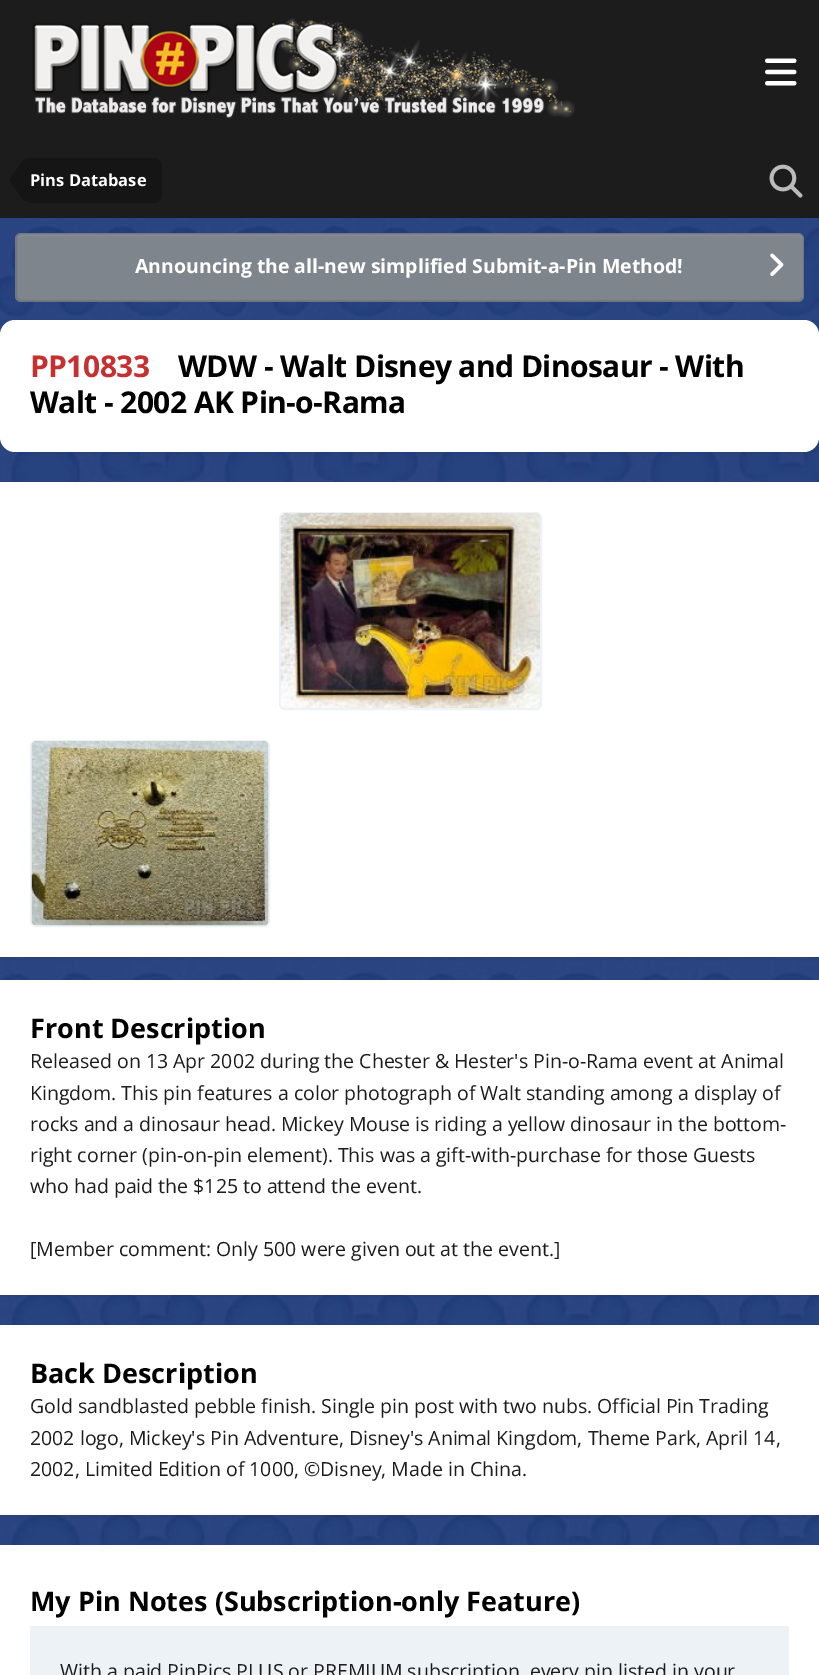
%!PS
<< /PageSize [819 1675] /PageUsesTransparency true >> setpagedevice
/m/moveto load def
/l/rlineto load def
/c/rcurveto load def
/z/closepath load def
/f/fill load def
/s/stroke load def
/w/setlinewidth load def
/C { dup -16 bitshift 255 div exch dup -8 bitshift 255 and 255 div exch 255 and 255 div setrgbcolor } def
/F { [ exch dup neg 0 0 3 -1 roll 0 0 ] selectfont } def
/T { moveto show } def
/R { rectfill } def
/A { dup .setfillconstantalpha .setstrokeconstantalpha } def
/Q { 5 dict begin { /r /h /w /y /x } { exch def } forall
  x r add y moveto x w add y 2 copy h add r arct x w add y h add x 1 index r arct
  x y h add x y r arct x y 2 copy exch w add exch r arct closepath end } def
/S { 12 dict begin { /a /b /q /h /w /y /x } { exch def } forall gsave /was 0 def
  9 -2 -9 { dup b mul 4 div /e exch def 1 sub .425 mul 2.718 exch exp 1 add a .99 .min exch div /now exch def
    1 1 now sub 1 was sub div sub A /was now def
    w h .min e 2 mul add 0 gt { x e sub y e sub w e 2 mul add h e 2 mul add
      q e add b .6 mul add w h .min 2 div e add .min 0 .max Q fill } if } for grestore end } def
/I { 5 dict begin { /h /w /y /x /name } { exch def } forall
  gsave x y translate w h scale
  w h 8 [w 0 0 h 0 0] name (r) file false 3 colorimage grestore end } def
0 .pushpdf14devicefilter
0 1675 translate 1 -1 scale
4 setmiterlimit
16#FFFFFF C
0 0 819 1675 R
(1.rgb) 0 218 819 1327 I
16#1C1C1C C
0 0 819 218 R
(2.rgb) 32 18 543 101 I
(3.rgb) 765 58 32 28 I
16#151515 C
30 158 m 124 0 l 4.5 0 8 3.5 8 8 c 0 29 l 0 4.5 -3.5 8 -8 8 c -124 0 l z f
30 180 m 0 22 l -3 0 -5.5 -1 -8 -4 c -11.5 -16 l -.5 -2 l z 30 180 m -20 0 l .5 -2 l 11.5 -16 l 2.5 -3 5 -4 8 -4 c z f
/OpenSans-Bold 16.5 F
16#FFFFFF C
(Pins Database) 30 186 T
(4.rgb) 769 164 34 34 I
16#7F858D C
15 233 789 69 6 Q f
16#8C9198 C
21 236 m 777 0 l 2 0 4 2 4 4 c 0 58 l 1 -1 1 -2 1 -3 c 0 -56 l 0 -3 -2 -5 -5 -5 c -776 0 l -2 0 -4 2 -5 4 c 1 -1 3 -2 4 -2 c z f
0.1 A
16#000000 C
2 w
16 234 787 67 5 Q s
/OpenSans-Bold 19.5 F
1 A
16#FFFFFF C
(Announcing the all-new simplified Submit-a-Pin Method!) 135 273 T
(5.rgb) 770 253 14 23 I
16#1C1C1C C
2 324 816 129 14 3 .1 S
16#FFFFFF C
0 320 819 132 15 Q f
/OpenSans-Bold 30 F
16#C53030 C
30 377 m -.6 0 (PP10833) ashow
16#000000 C
178 377 m -.6 0 (WDW - Walt Disney and Dinosaur - With) ashow
30 413 m -.6 0 (Walt - 2002 AK Pin-o-Rama) ashow
16#1C1C1C C
2 486 816 473 0 3 .1 S
16#FFFFFF C
0 482 819 475 R
16#EDF2F7 C
280 513 261 196 5 Q s
(6.rgb) 280 513 260 195 I
31 741 238 185 5 Q s
(7.rgb) 31 741 238 185 I
16#1C1C1C C
2 984 816 312 0 3 .1 S
16#FFFFFF C
0 980 819 315 R
/OpenSans-Bold 27 F
16#000000 C
(Front Description) 30 1038 T
/OpenSans-Regular 19.5 F
16#1C1C1C C
(Released on 13 Apr 2002 during the Chester & Hester's Pin-o-Rama event at Animal) 30 1068 T
(Kingdom. This pin features a color photograph of Walt standing among a display of) 30 1100 T
(rocks and a dinosaur head. Mickey Mouse is riding a yellow dinosaur in the bottom-) 30 1131 T
(right corner \(pin-on-pin element\). This was a gift-with-purchase for those Guests) 30 1162 T
(who had paid the $125 to attend the event.) 30 1193 T
([Member comment: Only 500 were given out at the event.]) 30 1256 T
2 1329 816 188 0 3 .1 S
16#FFFFFF C
0 1325 819 190 R
/OpenSans-Bold 27 F
16#000000 C
(Back Description) 30 1383 T
/OpenSans-Regular 19.5 F
16#1C1C1C C
(Gold sandblasted pebble finish. Single pin post with two nubs. Official Pin Trading) 30 1413 T
(2002 logo, Mickey's Pin Adventure, Disney's Animal Kingdom, Theme Park, April 14,) 30 1445 T
(2002, Limited Edition of 1000, ©Disney, Made in China.) 30 1476 T
/OpenSans-Bold 27 F
16#000000 C
(My Pin Notes \(Subscription-only Feature\)) 30 1611 T
16#EDF2F7 C
30 1626 759 49 R
/OpenSans-Regular 19.5 F
16#1C1C1C C
(With a paid PinPics PLUS or PREMIUM subscription, every pin listed in your) 60 1678 T
.poppdf14devicefilter showpage
